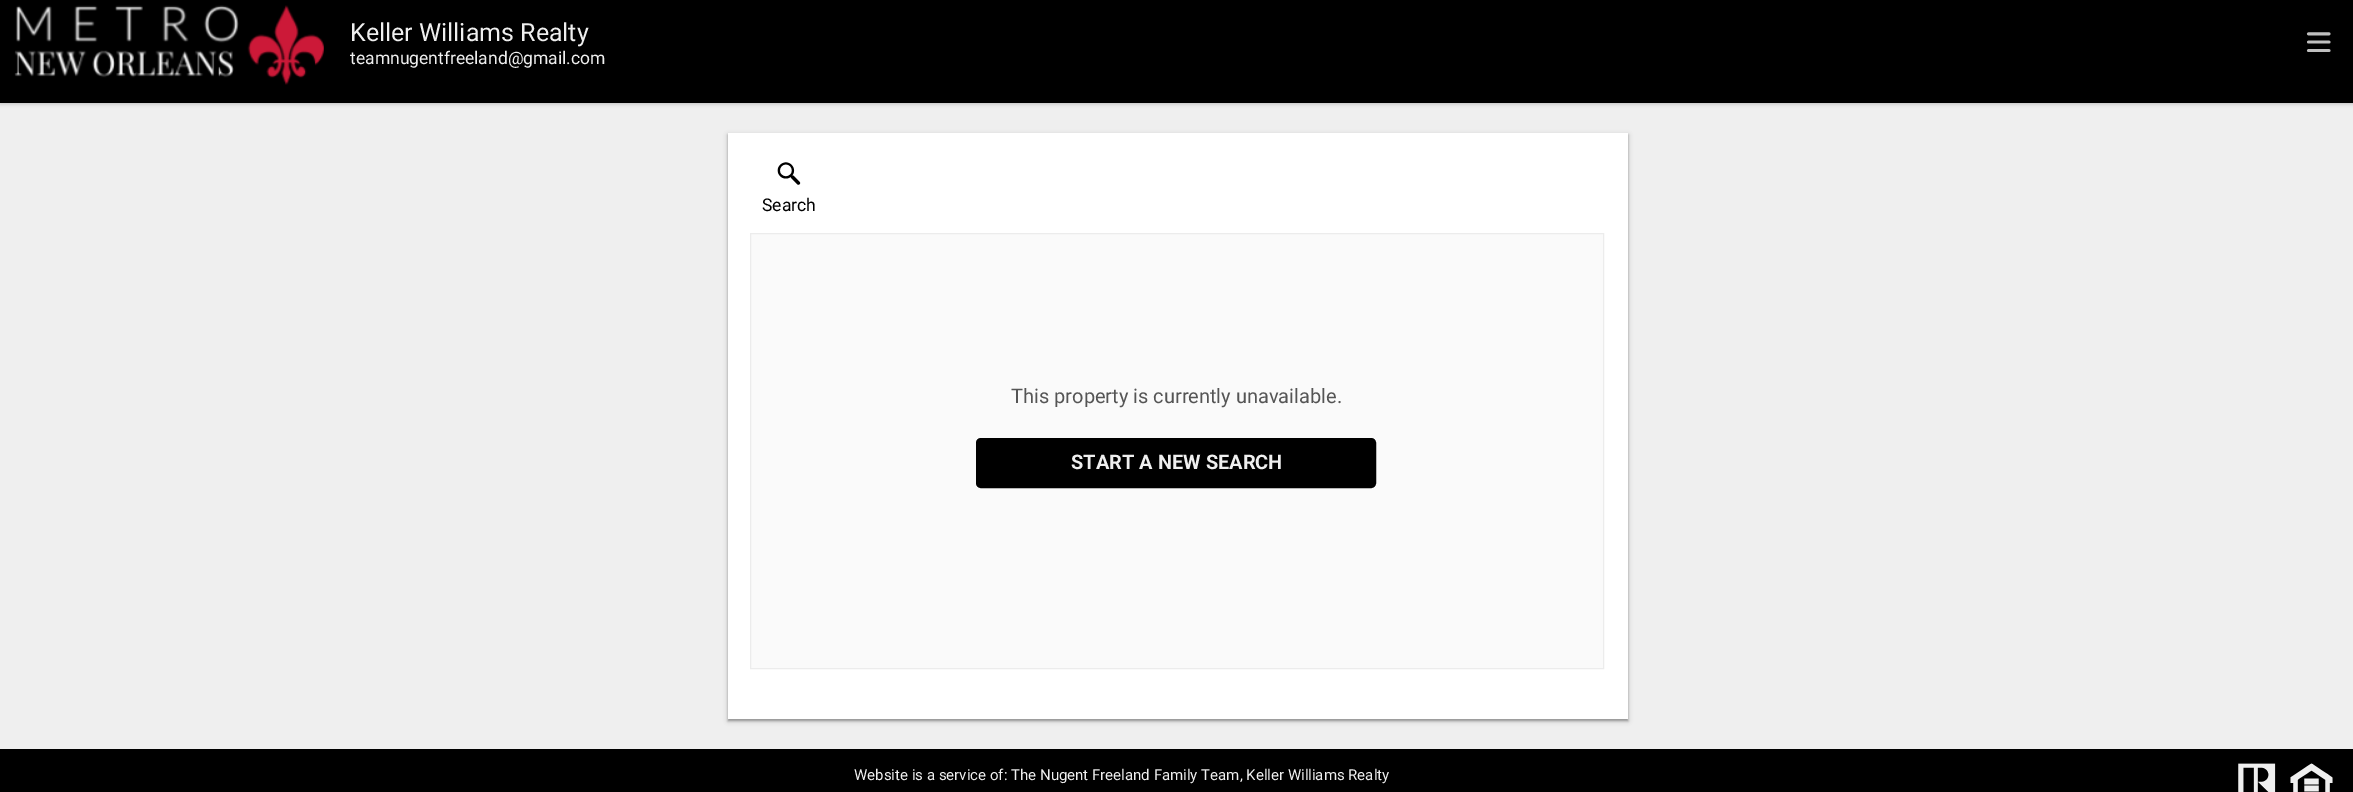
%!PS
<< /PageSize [2353 792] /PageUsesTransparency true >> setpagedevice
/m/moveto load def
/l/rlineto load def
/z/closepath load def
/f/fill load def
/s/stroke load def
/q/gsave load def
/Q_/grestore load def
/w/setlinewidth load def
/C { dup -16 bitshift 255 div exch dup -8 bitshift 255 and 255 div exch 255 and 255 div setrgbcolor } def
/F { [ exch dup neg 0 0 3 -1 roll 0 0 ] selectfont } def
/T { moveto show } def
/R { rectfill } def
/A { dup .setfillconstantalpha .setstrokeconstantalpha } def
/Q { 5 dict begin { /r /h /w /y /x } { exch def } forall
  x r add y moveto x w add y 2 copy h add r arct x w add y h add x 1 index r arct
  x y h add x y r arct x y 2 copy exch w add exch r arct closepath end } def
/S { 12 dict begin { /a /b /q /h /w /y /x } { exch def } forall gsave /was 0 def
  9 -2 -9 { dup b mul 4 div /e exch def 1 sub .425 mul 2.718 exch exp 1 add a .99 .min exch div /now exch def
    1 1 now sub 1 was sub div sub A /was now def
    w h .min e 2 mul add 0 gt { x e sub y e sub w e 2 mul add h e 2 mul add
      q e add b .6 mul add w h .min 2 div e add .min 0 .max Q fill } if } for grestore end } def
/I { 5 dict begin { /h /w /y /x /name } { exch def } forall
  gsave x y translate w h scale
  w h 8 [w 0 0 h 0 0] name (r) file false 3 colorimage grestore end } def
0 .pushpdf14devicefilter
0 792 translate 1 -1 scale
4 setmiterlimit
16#EFEFEF C
0 0 2353 792 R
16#000000 C
0 -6 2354 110 0 2 .2 S
0 0 2353 103 R
(1.rgb) 14 5 310 80 I
/Roboto-Regular 25 F
16#EFEFEF C
(Keller Williams Realty) 350 41 T
/Roboto-Regular 17.5 F
(teamnugentfreeland@gmail.com) 350 64 T
(2.rgb) 2306 32 25 20 I
16#000000 C
728 135 900 586 0 1 .25 S
728 135 900 586 0 2.5 .2 S
16#FFFFFF C
728 133 900 586 R
(3.rgb) 777 162 24 23 I
16#000000 C
(Search) 762 211 T
16#FAFAFA C
750.5 233.5 m 853 0 l 0 435 l -853 0 l z q f Q_
16#ECECEC C
s
/Roboto-Regular 20 F
16#555555 C
(This property is currently unavailable.) 1011 403 T
16#000000 C
977.5 439.5 397 47 3.5 Q q f Q_
3 w
s
/Roboto-Bold 20 F
16#EFEFEF C
(START A NEW SEARCH) 1071 469 T
16#000000 C
0 749 2353 43 R
/Roboto-Regular 15 F
16#EFEFEF C
(Website is a service of: The Nugent Freeland Family Team, Keller Williams Realty) 854 780 T
(4.rgb) 2238 763 38 29 I
(5.rgb) 2290 763 43 29 I
.poppdf14devicefilter showpage
